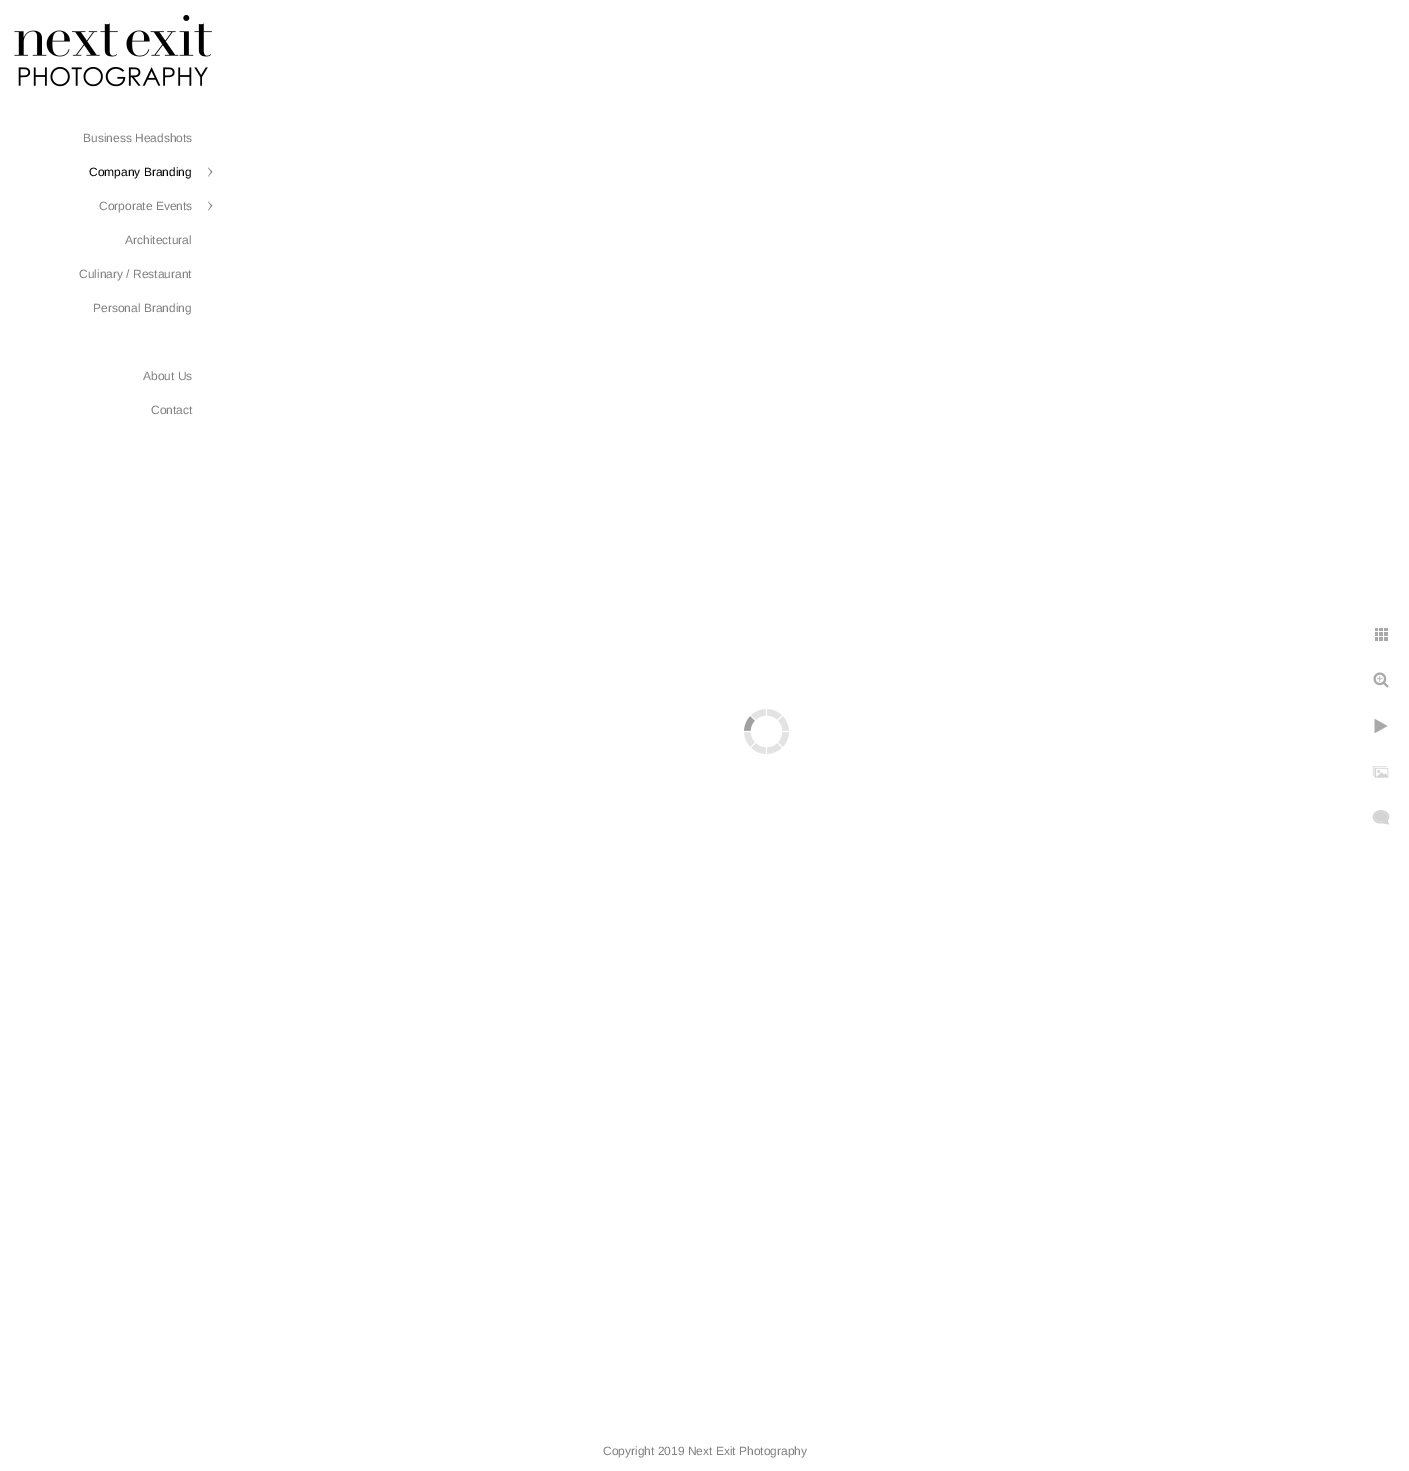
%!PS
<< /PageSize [1409 1471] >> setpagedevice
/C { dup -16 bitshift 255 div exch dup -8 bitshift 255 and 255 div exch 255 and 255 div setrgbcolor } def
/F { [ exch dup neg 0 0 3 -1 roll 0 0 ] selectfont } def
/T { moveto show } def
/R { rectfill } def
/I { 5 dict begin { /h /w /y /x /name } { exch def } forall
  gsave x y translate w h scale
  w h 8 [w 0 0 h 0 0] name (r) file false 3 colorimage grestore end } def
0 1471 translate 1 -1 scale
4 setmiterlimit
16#FFFFFF C
0 0 1409 1471 R
(1.rgb) 14 15 198 72 I
/LiberationSans-Regular 12 F
16#808080 C
(Business Headshots) 83 142 T
16#000000 C
(Company Branding) 89 176 T
(2.rgb) 207 167 6 10 I
16#808080 C
(Corporate Events) 99 210 T
(2.rgb) 207 201 6 10 I
(Architectural) 125 244 T
(Culinary / Restaurant) 79 278 T
(Personal Branding) 93 312 T
(About Us) 143 380 T
(Contact) 151 414 T
(3.rgb) 744 709 45 45 I
(4.rgb) 1375 628 13 13 I
(5.rgb) 1373 672 16 16 I
(6.rgb) 1374 719 14 14 I
(7.rgb) 1372 766 17 12 I
(8.rgb) 1372 810 18 15 I
(Copyright 2019 Next Exit Photography) 603 1455 T
showpage
